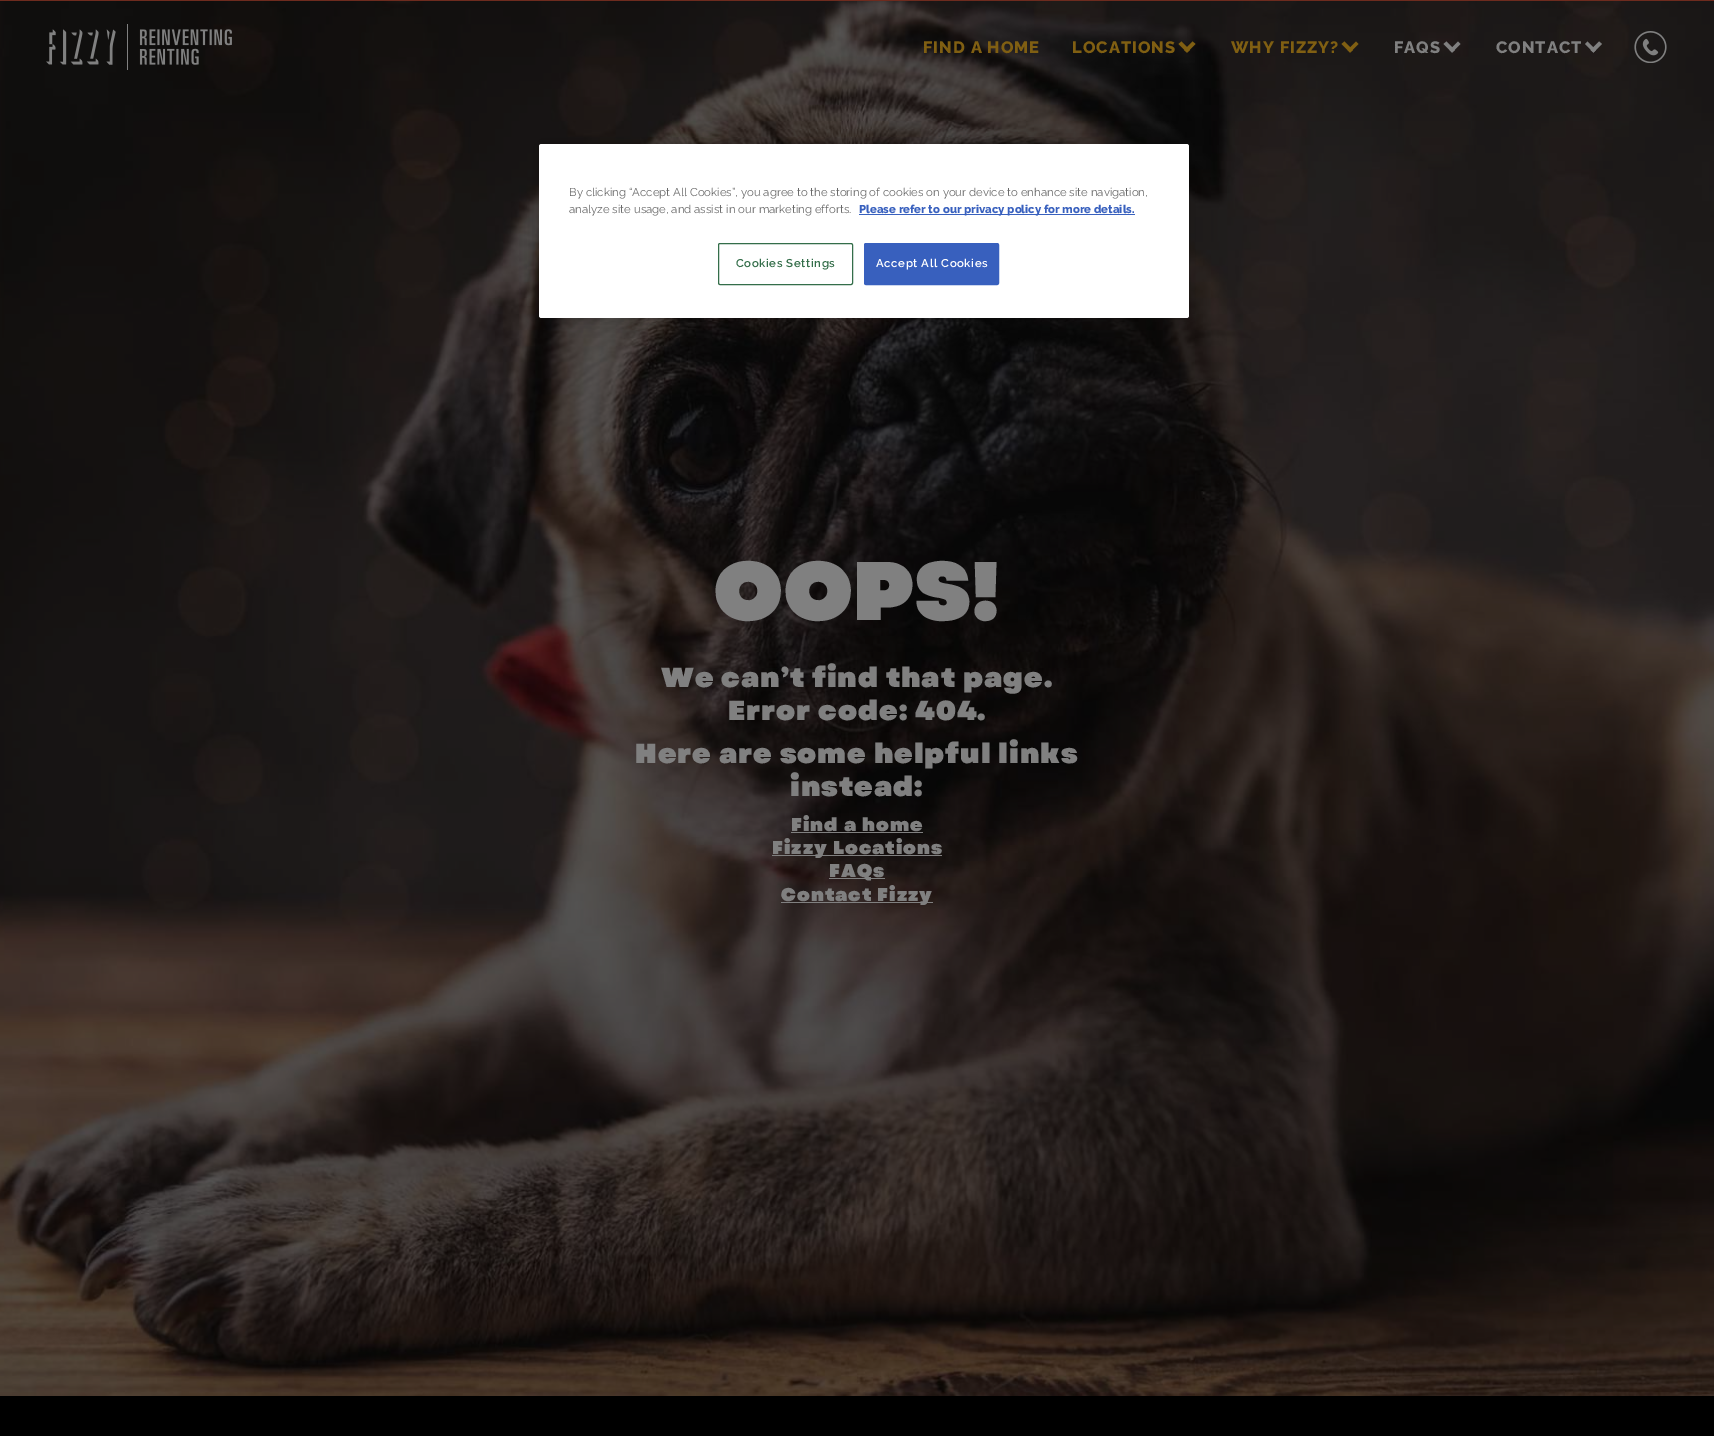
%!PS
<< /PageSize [1714 1436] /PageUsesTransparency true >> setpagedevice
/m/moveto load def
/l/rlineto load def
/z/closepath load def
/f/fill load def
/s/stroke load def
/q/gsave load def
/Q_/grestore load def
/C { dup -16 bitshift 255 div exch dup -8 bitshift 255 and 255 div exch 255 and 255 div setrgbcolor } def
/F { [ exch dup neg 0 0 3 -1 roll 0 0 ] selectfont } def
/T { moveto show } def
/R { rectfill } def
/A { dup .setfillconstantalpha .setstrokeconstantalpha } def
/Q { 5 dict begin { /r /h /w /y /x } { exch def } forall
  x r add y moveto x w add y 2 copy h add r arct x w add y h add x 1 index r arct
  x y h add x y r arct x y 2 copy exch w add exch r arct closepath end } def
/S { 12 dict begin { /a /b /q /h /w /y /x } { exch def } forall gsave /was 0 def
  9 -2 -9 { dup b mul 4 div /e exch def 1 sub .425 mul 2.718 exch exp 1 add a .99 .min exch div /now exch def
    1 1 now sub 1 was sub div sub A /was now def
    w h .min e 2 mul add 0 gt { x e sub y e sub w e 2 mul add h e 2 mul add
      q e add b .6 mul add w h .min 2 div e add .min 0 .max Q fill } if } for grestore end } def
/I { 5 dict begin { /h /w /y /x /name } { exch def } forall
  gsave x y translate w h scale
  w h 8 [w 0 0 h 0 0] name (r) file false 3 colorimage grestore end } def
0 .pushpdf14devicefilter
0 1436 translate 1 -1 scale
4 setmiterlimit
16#000000 C
0 0 1714 1436 R
(1.rgb) 0 1 1714 1395 I
16#6E2B1E C
0 0 1714 1 R
(2.rgb) 46 24 186 46 I
/Raleway-Thin 16.5 F
16#805F12 C
923 53 m 1 0 (FIND A HOME) ashow
1072 53 m 1 0 (LOCATIONS) ashow
1187 52.5 m -8.5 -8.5 l 3 -2.5 l 8.5 8.5 l z f
1187 52.5 m -3 -2.5 l 8.5 -8.5 l 3 2.5 l z f
1231 53 m 1 0 (WHY FIZZY?) ashow
1350 52.5 m -8.5 -8.5 l 3 -2.5 l 8.5 8.5 l z f
1350 52.5 m -2.5 -2.5 l 8.5 -8.5 l 2.5 2.5 l z f
16#808080 C
1394 53 m 1 0 (FAQS) ashow
1452 52.5 m -8.5 -8.5 l 3 -2.5 l 8.5 8.5 l z f
1452 52.5 m -2.5 -2.5 l 8.5 -8.5 l 2.5 2.5 l z f
1496 53 m 1 0 (CONTACT) ashow
1593.5 52.5 m -8.5 -8.5 l 2.5 -2.5 l 8.5 8.5 l z f
1593.5 52.5 m -3 -2.5 l 8.5 -8.5 l 3 2.5 l z f
(3.rgb) 1634 31 33 32 I
/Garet-Black 83 F
714 620 m 1 0 (OOPS!) ashow
/Garet-Black 27.6 F
661 687 m 1 0 (We can’t find that page.) ashow
728 720 m 1 0 (Error code: 404.) ashow
635 763 m 1 0 (Here are some helpful links) ashow
790 796 m 1 0 (instead:) ashow
/Garet-Black 18.5 F
791 831 m 1 0 (Find a home) ashow
791 832 132 1 R
772 855 170 1 R
772 854 m 1 0 (Fizzy Locations) ashow
829 878 56 1 R
829 877 m 1 0 (FAQs) ashow
781 902 152 1 R
781 901 m 1 0 (Contact Fizzy) ashow
16#000000 C
539 144 650 174 2.5 9 .2 S
16#FFFFFF C
539 144 650 174 2.5 Q f
/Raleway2-Thin 11.38 F
16#696969 C
(By clicking “Accept All Cookies”, you agree to the storing of cookies on your device to enhance site navigation,) 569 196 T
(analyze site usage, and assist in our marketing efforts.) 569 213 T
16#3860BE C
859 214 276 1 R
/Raleway-Thin 11.38 F
(Please refer to our privacy policy for more details.) 859 213 T
16#346E4A C
718.5 243.5 134 41 1.5 Q s
/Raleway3-Thin 11.38 F
736 267 m .6 0 (Cookies Settings) ashow
16#3860BE C
864.5 243.5 134 41 1.5 Q q f Q_
s
16#FFFFFF C
876 267 m .6 0 (Accept All Cookies) ashow
.poppdf14devicefilter showpage
